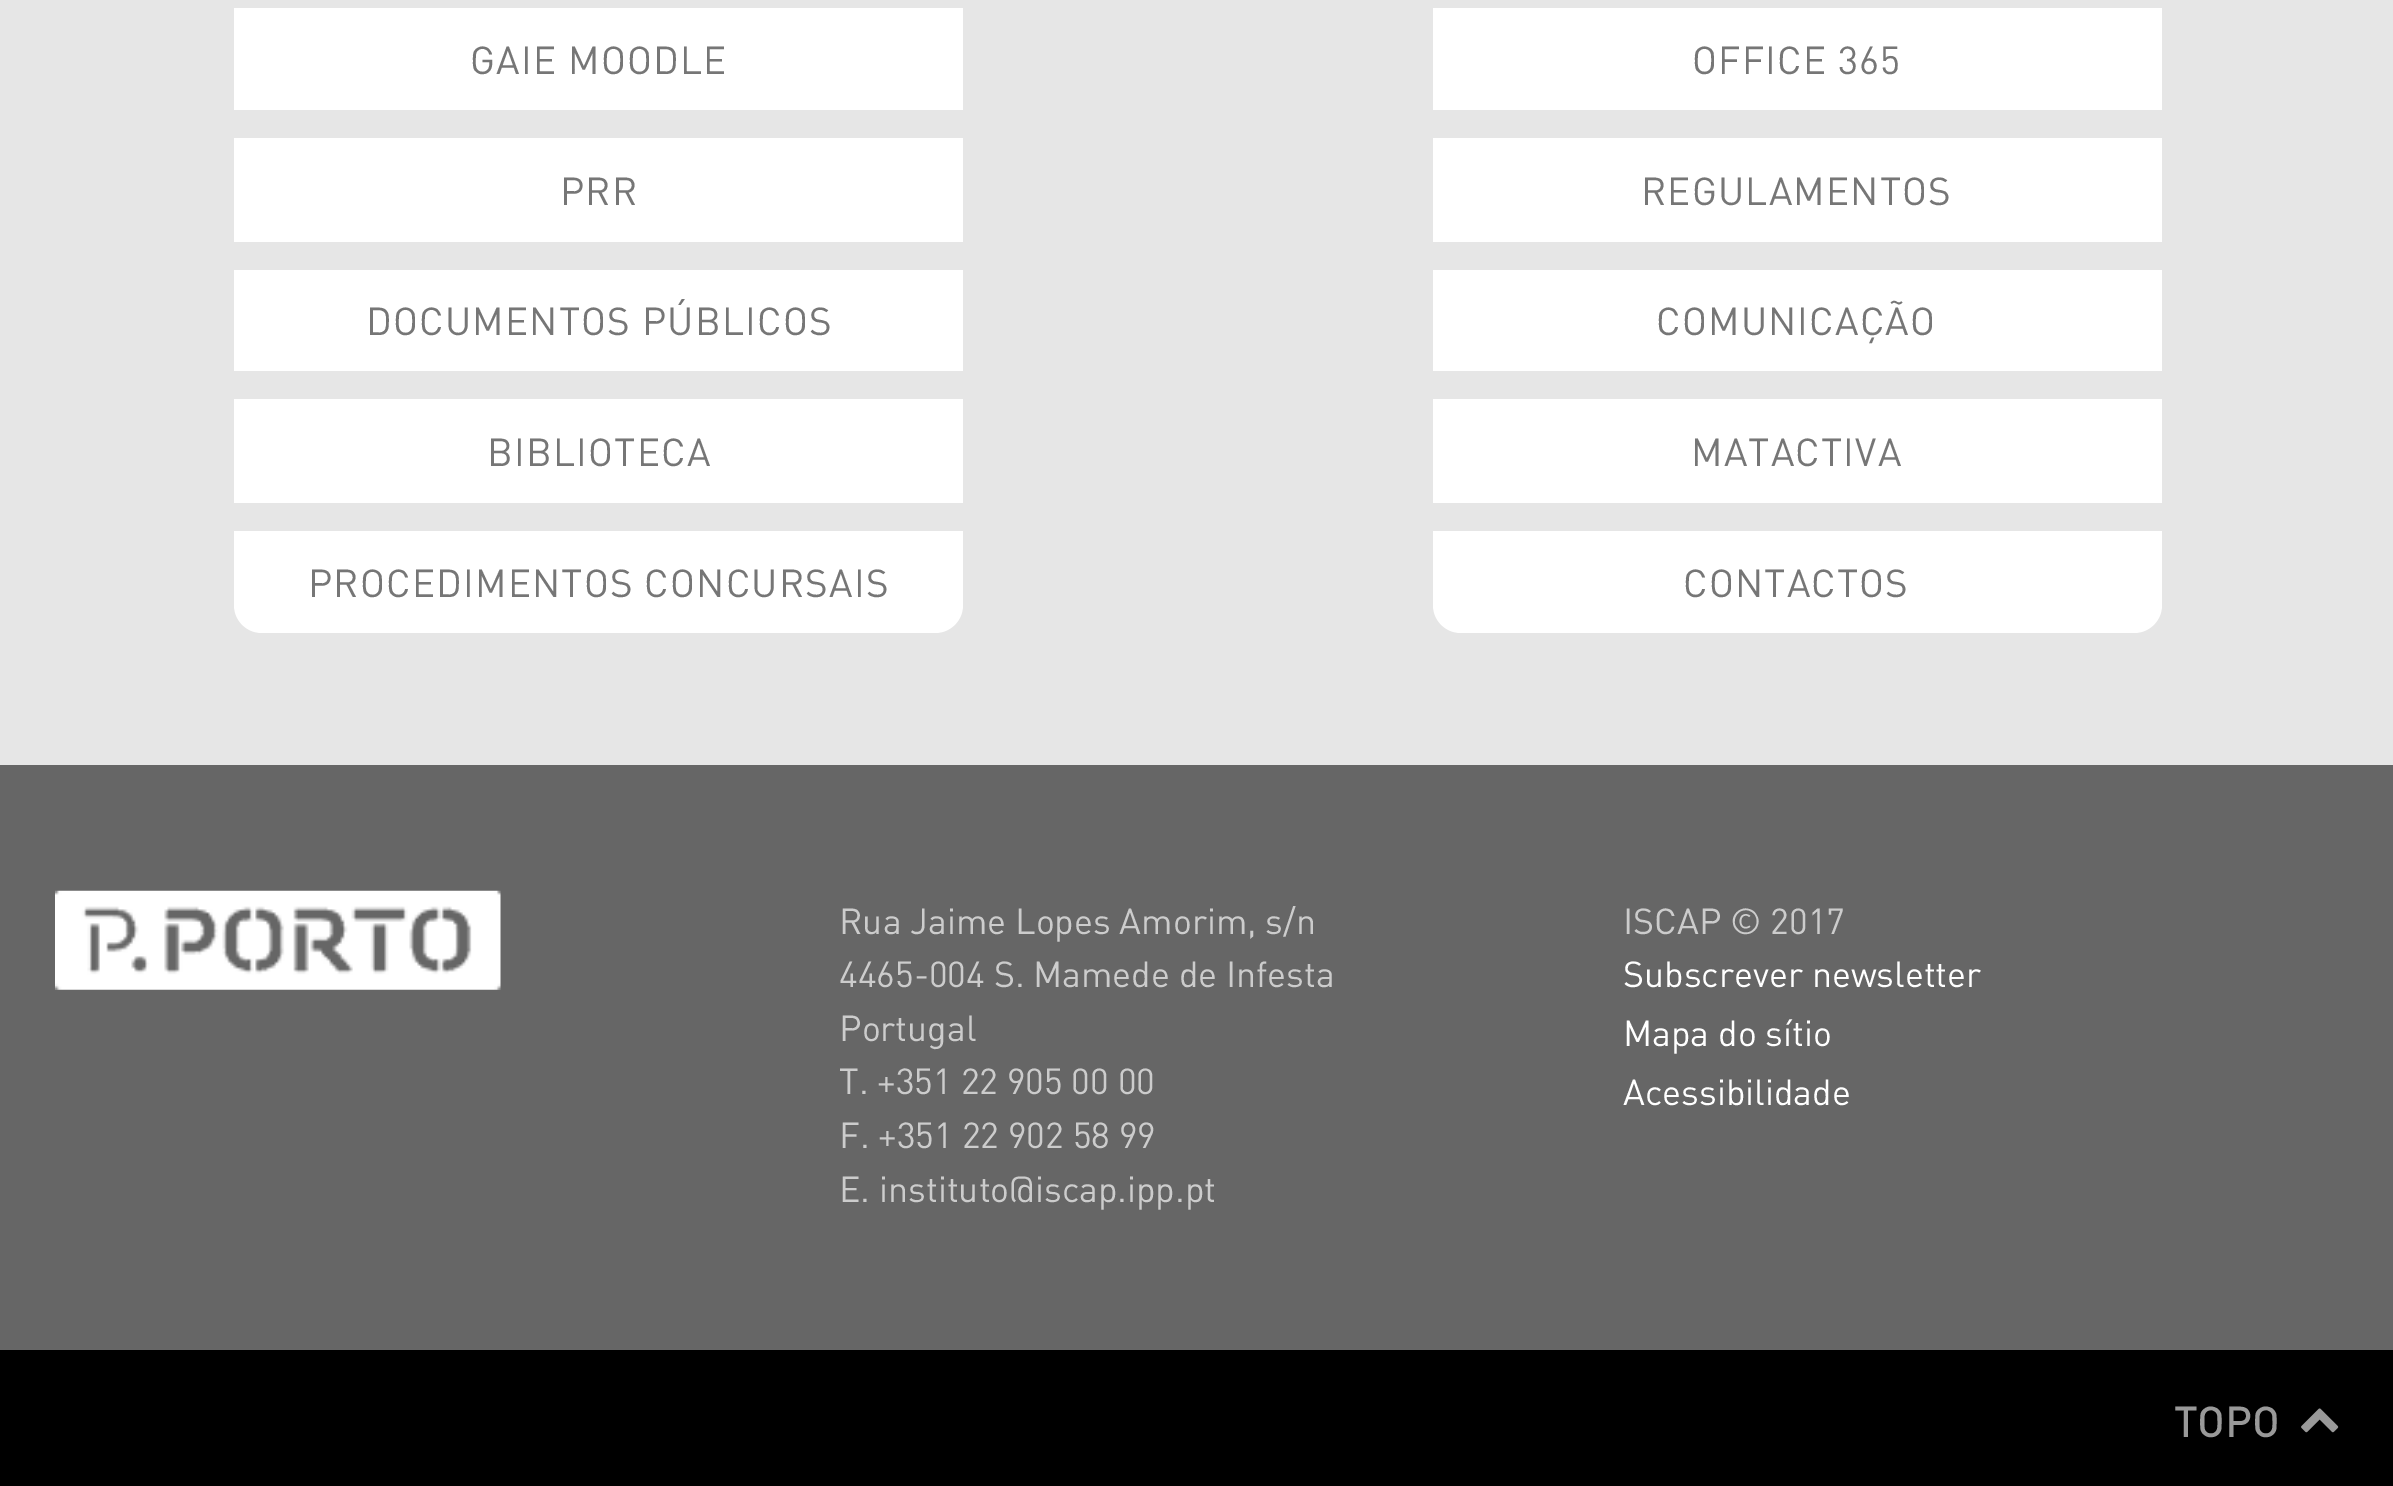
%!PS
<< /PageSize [2393 1486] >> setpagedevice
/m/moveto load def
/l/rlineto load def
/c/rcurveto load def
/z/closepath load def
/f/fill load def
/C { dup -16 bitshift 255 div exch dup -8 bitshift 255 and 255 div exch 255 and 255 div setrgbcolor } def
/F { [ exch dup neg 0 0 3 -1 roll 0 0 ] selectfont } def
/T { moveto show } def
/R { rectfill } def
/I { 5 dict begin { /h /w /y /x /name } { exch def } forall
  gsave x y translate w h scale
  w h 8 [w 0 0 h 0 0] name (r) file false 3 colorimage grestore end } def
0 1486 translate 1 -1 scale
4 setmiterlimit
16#666666 C
0 0 2393 1486 R
16#E6E6E6 C
0 0 2393 765 R
16#FFFFFF C
234 8 729 102 R
/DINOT-Regular 38.5 F
16#767676 C
470 74 m 1.2 0 (GAIE MOODLE) ashow
16#FFFFFF C
1433 8 729 102 R
16#767676 C
1692 74 m 1.2 0 (OFFICE 365) ashow
16#FFFFFF C
234 138 729 104 R
16#767676 C
560 205 m 1.2 0 (PRR) ashow
16#FFFFFF C
1433 138 729 104 R
16#767676 C
1641 205 m 1.2 0 (REGULAMENTOS) ashow
16#FFFFFF C
234 270 729 101 R
16#767676 C
366 335 m 1.2 0 (DOCUMENTOS PÚBLICOS) ashow
16#FFFFFF C
1433 270 729 101 R
16#767676 C
1656 335 m 1.2 0 (COMUNICAÇÃO) ashow
16#FFFFFF C
234 399 729 104 R
16#767676 C
487 466 m 1.2 0 (BIBLIOTECA) ashow
16#FFFFFF C
1433 399 729 104 R
16#767676 C
1691 466 m 1.2 0 (MATACTIVA) ashow
16#FFFFFF C
234 531 m 729 0 l 0 74 l 0 15.5 -12.5 28 -28 28 c -673 0 l -15.5 0 -28 -12.5 -28 -28 c z f
16#767676 C
308 597 m 1.2 0 (PROCEDIMENTOS CONCURSAIS) ashow
16#FFFFFF C
1433 531 m 729 0 l 0 74 l 0 15.5 -12.5 28 -28 28 c -673 0 l -15.5 0 -28 -12.5 -28 -28 c z f
16#767676 C
1683 597 m 1.2 0 (CONTACTOS) ashow
(1.rgb) 55 890 446 100 I
/DINOT-Regular 35.75 F
16#CCCCCC C
(Rua Jaime Lopes Amorim, s/n) 839 934 T
(4465-004 S. Mamede de Infesta) 839 987 T
(Portugal) 839 1041 T
(T. +351 22 905 00 00) 839 1094 T
(F. +351 22 902 58 99) 839 1148 T
(E. instituto@iscap.ipp.pt) 839 1202 T
(ISCAP © 2017) 1623 934 T
16#FFFFFF C
(Subscrever newsletter) 1623 987 T
(Mapa do sítio) 1623 1046 T
(Acessibilidade) 1623 1105 T
16#000000 C
0 1350 2393 136 R
/DINOT-Bold 41 F
16#999999 C
2174 1437 m 1 0 (TOPO) ashow
(2.rgb) 2301 1408 38 25 I
showpage
